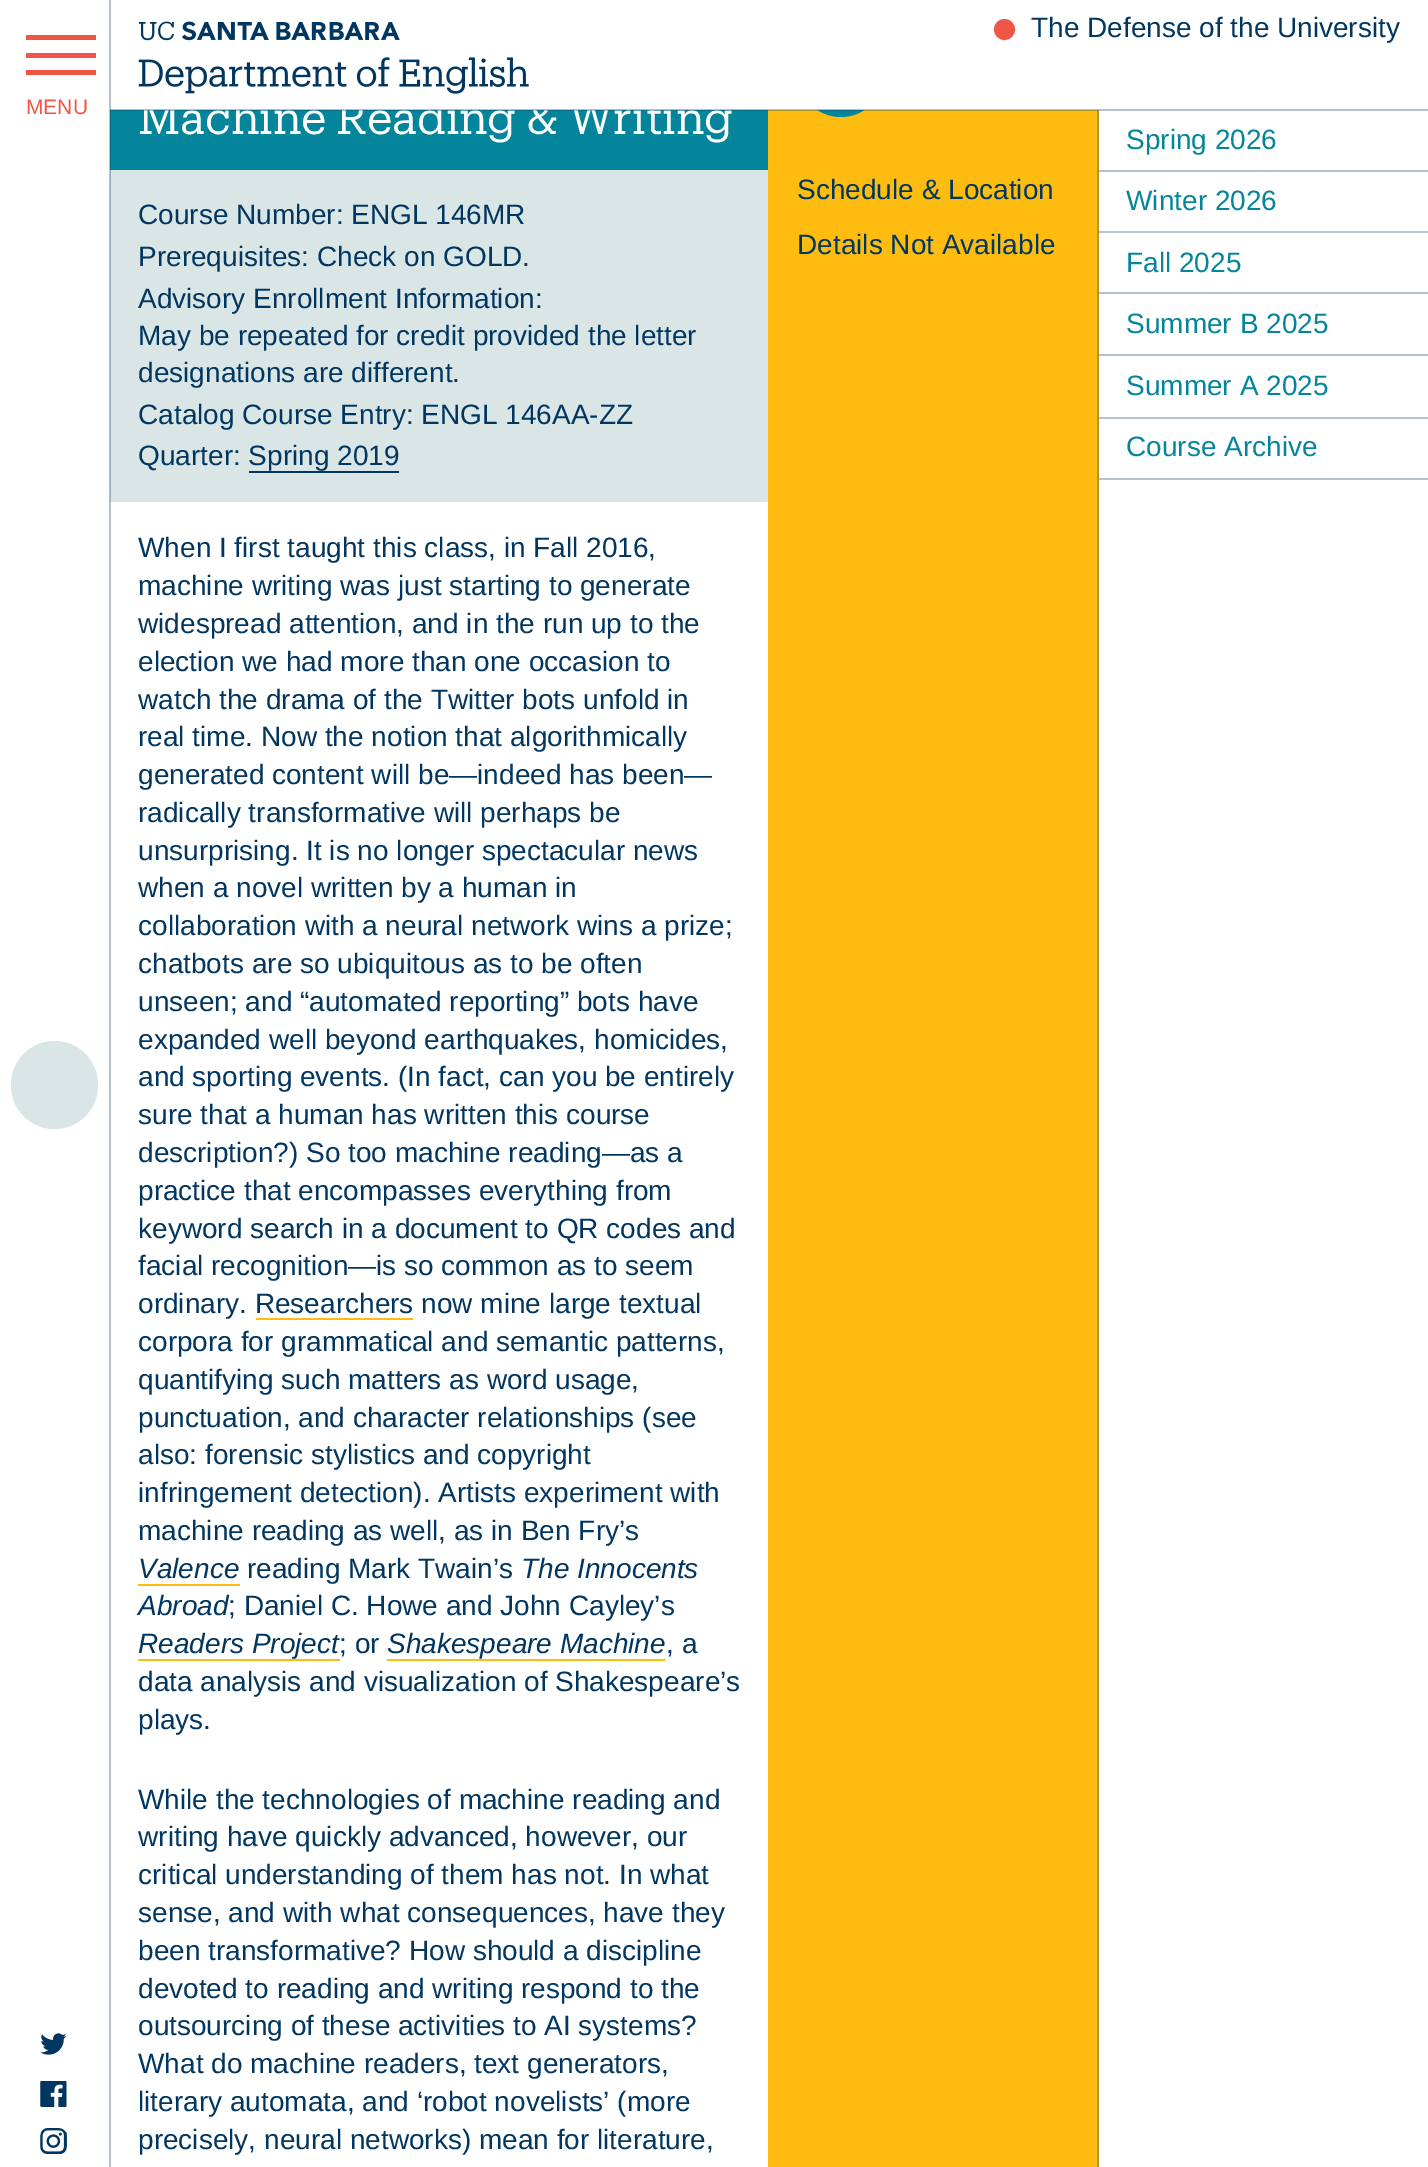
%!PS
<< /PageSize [1428 2167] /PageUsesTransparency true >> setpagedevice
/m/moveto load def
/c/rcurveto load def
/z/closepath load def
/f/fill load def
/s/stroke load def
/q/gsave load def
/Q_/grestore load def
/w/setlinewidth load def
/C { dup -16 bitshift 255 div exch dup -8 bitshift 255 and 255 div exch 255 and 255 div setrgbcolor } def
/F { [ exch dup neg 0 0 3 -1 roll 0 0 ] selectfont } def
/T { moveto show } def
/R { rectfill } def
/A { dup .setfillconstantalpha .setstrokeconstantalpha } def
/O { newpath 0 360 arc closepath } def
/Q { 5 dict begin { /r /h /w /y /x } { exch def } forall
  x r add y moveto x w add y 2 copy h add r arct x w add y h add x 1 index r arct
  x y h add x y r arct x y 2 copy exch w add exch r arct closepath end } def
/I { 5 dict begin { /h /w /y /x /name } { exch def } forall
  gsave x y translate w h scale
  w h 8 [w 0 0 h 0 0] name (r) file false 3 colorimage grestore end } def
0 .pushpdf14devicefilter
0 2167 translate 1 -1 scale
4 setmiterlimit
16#FFFFFF C
0 0 1428 2167 R
16#FEBC11 C
768 110 329 2057 R
16#04859B C
841 29 m -24 0 -44 20 -44 44 c 0 24 20 44 44 44 c 24 0 43 -20 43 -44 c 0 -24 -19 -44 -43 -44 c z f
16#FFFFFF C
797 29 87 81 R
16#04859B C
110 110 658 60 R
/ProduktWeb-Regular 44.75 F
16#FFFFFF C
138 134 m -.25 0 (Machine Reading & Writing) ashow
16#B29429 C
1097 110 2 2057 R
0.3 A
16#003660 C
110 109 1318 2 R
1 A
(1.rgb) 138 21 391 73 I
16#EF5645 C
1004.5 29.5 9.5 O q f Q_
2 w
s
/LiberationSans-Regular 28 F
16#003660 C
(The Defense of the University) 1031 37 T
16#DAE6E6 C
110 170 658 332 R
0.3 A
16#003660 C
109 0 2 2167 R
1 A
16#EF5645 C
26 53 70 5 R
26 35 70 5 R
26 70 70 5 R
/LiberationSans-Regular 21 F
(MENU) 26 114 T
16#DAE6E6 C
11 1041 87 88 43.5 Q f
(2.rgb) 40 2033 27 22 I
(3.rgb) 40 2081 27 26 I
(4.rgb) 40 2128 27 26 I
/LiberationSans-Regular 28 F
16#003660 C
(Course Number: ENGL 146MR) 138 224 T
(Prerequisites: Check on GOLD.) 138 266 T
(Advisory Enrollment Information:) 138 308 T
(May be repeated for credit provided the letter) 138 345 T
(designations are different.) 138 382 T
(Catalog Course Entry: ENGL 146AA-ZZ) 138 424 T
(Quarter: Spring 2019) 138 465 T
249 471 150 2 R
(When I first taught this class, in Fall 2016,) 138 557 T
(machine writing was just starting to generate) 138 595 T
(widespread attention, and in the run up to the) 138 633 T
(election we had more than one occasion to) 138 671 T
(watch the drama of the Twitter bots unfold in) 138 709 T
(real time. Now the notion that algorithmically) 138 746 T
(generated content will be—indeed has been—) 138 784 T
(radically transformative will perhaps be) 138 822 T
(unsurprising. It is no longer spectacular news) 138 860 T
(when a novel written by a human in) 138 897 T
(collaboration with a neural network wins a prize;) 138 935 T
(chatbots are so ubiquitous as to be often) 138 973 T
(unseen; and “automated reporting” bots have) 138 1011 T
(expanded well beyond earthquakes, homicides,) 138 1049 T
(and sporting events. \(In fact, can you be entirely) 138 1086 T
(sure that a human has written this course) 138 1124 T
(description?\) So too machine reading—as a) 138 1162 T
(practice that encompasses everything from) 138 1200 T
(keyword search in a document to QR codes and) 138 1238 T
(facial recognition—is so common as to seem) 138 1275 T
(ordinary. Researchers now mine large textual) 138 1313 T
16#FEBC11 C
256 1318 157 2 R
16#003660 C
(corpora for grammatical and semantic patterns,) 138 1351 T
(quantifying such matters as word usage,) 138 1389 T
(punctuation, and character relationships \(see) 138 1427 T
(also: forensic stylistics and copyright) 138 1464 T
(infringement detection\). Artists experiment with) 138 1502 T
(machine reading as well, as in Ben Fry’s) 138 1540 T
/LiberationSans-Italic 28 F
(Valence) 138 1578 T
16#FEBC11 C
138 1584 102 2 R
/LiberationSans-Regular 28 F
16#003660 C
(reading Mark Twain’s) 247 1578 T
/LiberationSans-Italic 28 F
(The Innocents) 521 1578 T
(Abroad) 138 1615 T
/LiberationSans-Regular 28 F
(; Daniel C. Howe and John Cayley’s) 228 1615 T
/LiberationSans-Italic 28 F
(Readers Project) 138 1653 T
16#FEBC11 C
138 1659 202 2 R
/LiberationSans-Regular 28 F
16#003660 C
(; or) 339 1653 T
/LiberationSans-Italic 28 F
(Shakespeare Machine) 387 1653 T
16#FEBC11 C
387 1659 278 2 R
/LiberationSans-Regular 28 F
16#003660 C
(, a) 666 1653 T
(data analysis and visualization of Shakespeare’s) 138 1691 T
(plays.) 138 1729 T
(While the technologies of machine reading and) 138 1809 T
(writing have quickly advanced, however, our) 138 1846 T
(critical understanding of them has not. In what) 138 1884 T
(sense, and with what consequences, have they) 138 1922 T
(been transformative? How should a discipline) 138 1960 T
(devoted to reading and writing respond to the) 138 1998 T
(outsourcing of these activities to AI systems?) 138 2035 T
(What do machine readers, text generators,) 138 2073 T
(literary automata, and ‘robot novelists’ \(more) 138 2111 T
(precisely, neural networks\) mean for literature,) 138 2149 T
(Schedule & Location) 797 199 T
(Details Not Available) 797 254 T
16#B3C3CF C
1099 170 329 2 R
16#04859B C
(Spring 2026) 1126 149 T
16#B3C3CF C
1099 231 329 2 R
16#04859B C
(Winter 2026) 1126 210 T
16#B3C3CF C
1099 292 329 2 R
16#04859B C
(Fall 2025) 1126 272 T
16#B3C3CF C
1099 354 329 2 R
16#04859B C
(Summer B 2025) 1126 333 T
16#B3C3CF C
1099 417 329 2 R
16#04859B C
(Summer A 2025) 1126 395 T
16#B3C3CF C
1099 478 329 2 R
16#04859B C
(Course Archive) 1126 456 T
.poppdf14devicefilter showpage
